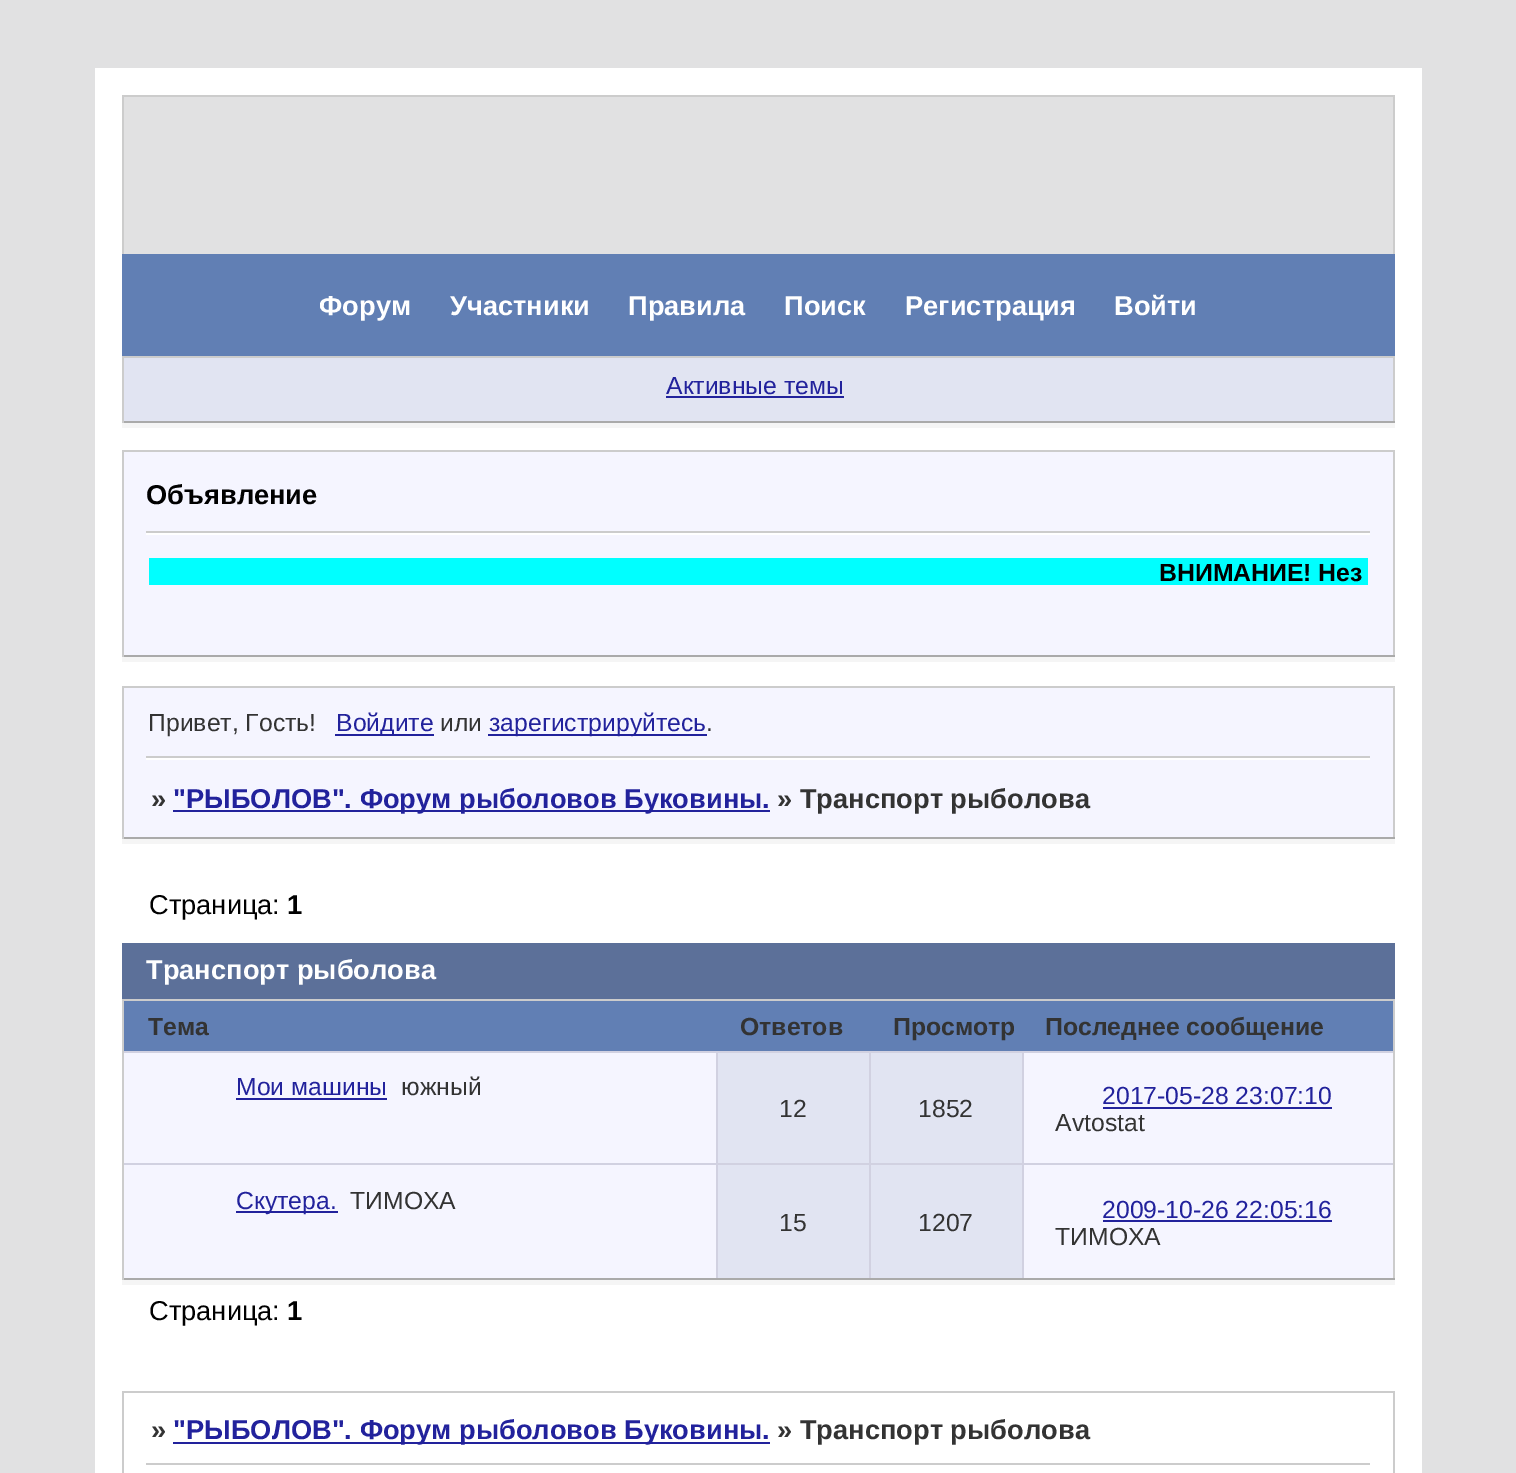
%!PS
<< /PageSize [1516 1473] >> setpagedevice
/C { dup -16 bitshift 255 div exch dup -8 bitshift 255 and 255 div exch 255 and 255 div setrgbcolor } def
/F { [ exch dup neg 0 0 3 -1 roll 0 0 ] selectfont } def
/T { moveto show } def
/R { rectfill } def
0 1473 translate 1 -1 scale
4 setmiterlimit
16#E1E1E2 C
0 0 1516 1473 R
16#FFFFFF C
95 68 1327 1405 R
16#CCCCCC C
122 95 1273 2 R
1393 95 2 159 R
122 95 2 159 R
16#E1E1E2 C
124 97 1269 157 R
16#617FB4 C
122 254 1273 102 R
/LiberationSans-Bold 27.25 F
16#FFFFFF C
(Форум) 319 315 T
(Участники) 450 315 T
(Правила) 628 315 T
(Поиск) 784 315 T
(Регистрация) 905 315 T
(Войти) 1114 315 T
16#F5F5F5 C
122 423 1273 5 R
16#E1E4F2 C
124 358 1269 63 R
16#CCCCCC C
122 356 1273 2 R
1393 356 2 67 R
16#AAAAAA C
122 421 1273 2 R
16#CCCCCC C
122 356 2 67 R
/LiberationSans-Regular 24.75 F
16#22229C C
(Активные темы) 666 394 T
666 396 178 2 R
16#F5F5F5 C
122 657 1273 5 R
16#F5F5FF C
124 452 1269 203 R
16#FFFFFF C
146 533 1224 2 R
16#CCCCCC C
146 531 1224 2 R
/LiberationSans-Bold 27.25 F
16#000000 C
(Объявление) 146 504 T
16#CCCCCC C
122 450 1273 2 R
1393 450 2 207 R
16#AAAAAA C
122 655 1273 2 R
16#CCCCCC C
122 450 2 207 R
16#00FFFF C
149 558 1219 27 R
/LiberationSans-Bold 24.75 F
16#000000 C
(ВНИМАНИЕ! Нез) 1159 581 T
16#F5F5FF C
124 688 1269 149 R
16#CCCCCC C
122 686 1273 2 R
1393 686 2 153 R
122 686 2 75 R
/LiberationSans-Regular 24.75 F
16#333333 C
(Привет, Гость!) 148 731 T
16#22229C C
335 734 99 2 R
(Войдите) 336 731 T
16#333333 C
(или) 440 731 T
16#22229C C
488 734 219 2 R
(зарегистрируйтесь) 489 731 T
16#333333 C
(.) 706 731 T
16#CCCCCC C
146 756 1224 2 R
16#FFFFFF C
146 758 1224 2 R
16#F5F5F5 C
122 839 1273 5 R
16#AAAAAA C
122 837 1273 2 R
16#CCCCCC C
122 756 2 83 R
/LiberationSans-Bold 27.25 F
16#333333 C
(») 151 808 T
16#22229C C
173 810 597 2 R
("РЫБОЛОВ". Форум рыболовов Буковины.) 173 808 T
16#333333 C
(» Транспорт рыболова) 777 808 T
/LiberationSans-Regular 27.25 F
16#000000 C
(Страница:) 149 914 T
/LiberationSans-Bold 27.25 F
(1) 287 914 T
16#5C7099 C
122 943 1273 56 R
16#FFFFFF C
(Транспорт рыболова) 146 979 T
16#F5F5F5 C
122 1280 1273 5 R
16#F5F5FF C
124 1053 1269 225 R
16#CCCCCC C
122 999 1273 2 R
1393 999 2 281 R
16#AAAAAA C
122 1278 1273 2 R
16#CCCCCC C
122 999 2 281 R
16#617FB4 C
124 1001 1269 50 R
/LiberationSans-Bold 24.75 F
16#333333 C
(Тема) 148 1035 T
(Ответов) 740 1035 T
(Просмотр) 893 1035 T
(Последнее сообщение) 1045 1035 T
/LiberationSans-Regular 24.75 F
16#22229C C
(Мои машины) 236 1095 T
236 1098 151 2 R
16#333333 C
(южный) 401 1095 T
16#E1E4F2 C
718 1053 151 110 R
16#D1D1E1 C
124 1051 1269 2 R
716 1051 2 112 R
16#333333 C
(12) 779 1117 T
16#E1E4F2 C
871 1053 151 110 R
16#D1D1E1 C
869 1051 2 112 R
16#333333 C
(1852) 918 1117 T
16#D1D1E1 C
124 1163 1269 2 R
1022 1051 2 227 R
16#22229C C
(2017-05-28 23:07:10) 1102 1104 T
1103 1107 229 2 R
16#333333 C
(Avtostat) 1055 1131 T
16#22229C C
236 1211 102 2 R
(Скутера.) 236 1209 T
16#333333 C
(ТИМОХА) 350 1209 T
16#E1E4F2 C
718 1165 151 113 R
16#D1D1E1 C
716 1163 2 115 R
16#333333 C
(15) 779 1231 T
16#E1E4F2 C
871 1165 151 113 R
16#D1D1E1 C
869 1163 2 115 R
16#333333 C
(1207) 918 1231 T
16#22229C C
(2009-10-26 22:05:16) 1102 1218 T
1103 1220 229 2 R
16#333333 C
(ТИМОХА) 1055 1245 T
/LiberationSans-Regular 27.25 F
16#000000 C
(Страница:) 149 1320 T
/LiberationSans-Bold 27.25 F
(1) 287 1320 T
16#CCCCCC C
122 1391 1273 2 R
1393 1463 2 10 R
1393 1391 2 76 R
122 1463 2 10 R
122 1391 2 76 R
16#333333 C
(») 151 1439 T
16#22229C C
173 1442 597 2 R
("РЫБОЛОВ". Форум рыболовов Буковины.) 173 1439 T
16#333333 C
(» Транспорт рыболова) 777 1439 T
16#CCCCCC C
146 1463 1224 2 R
showpage
